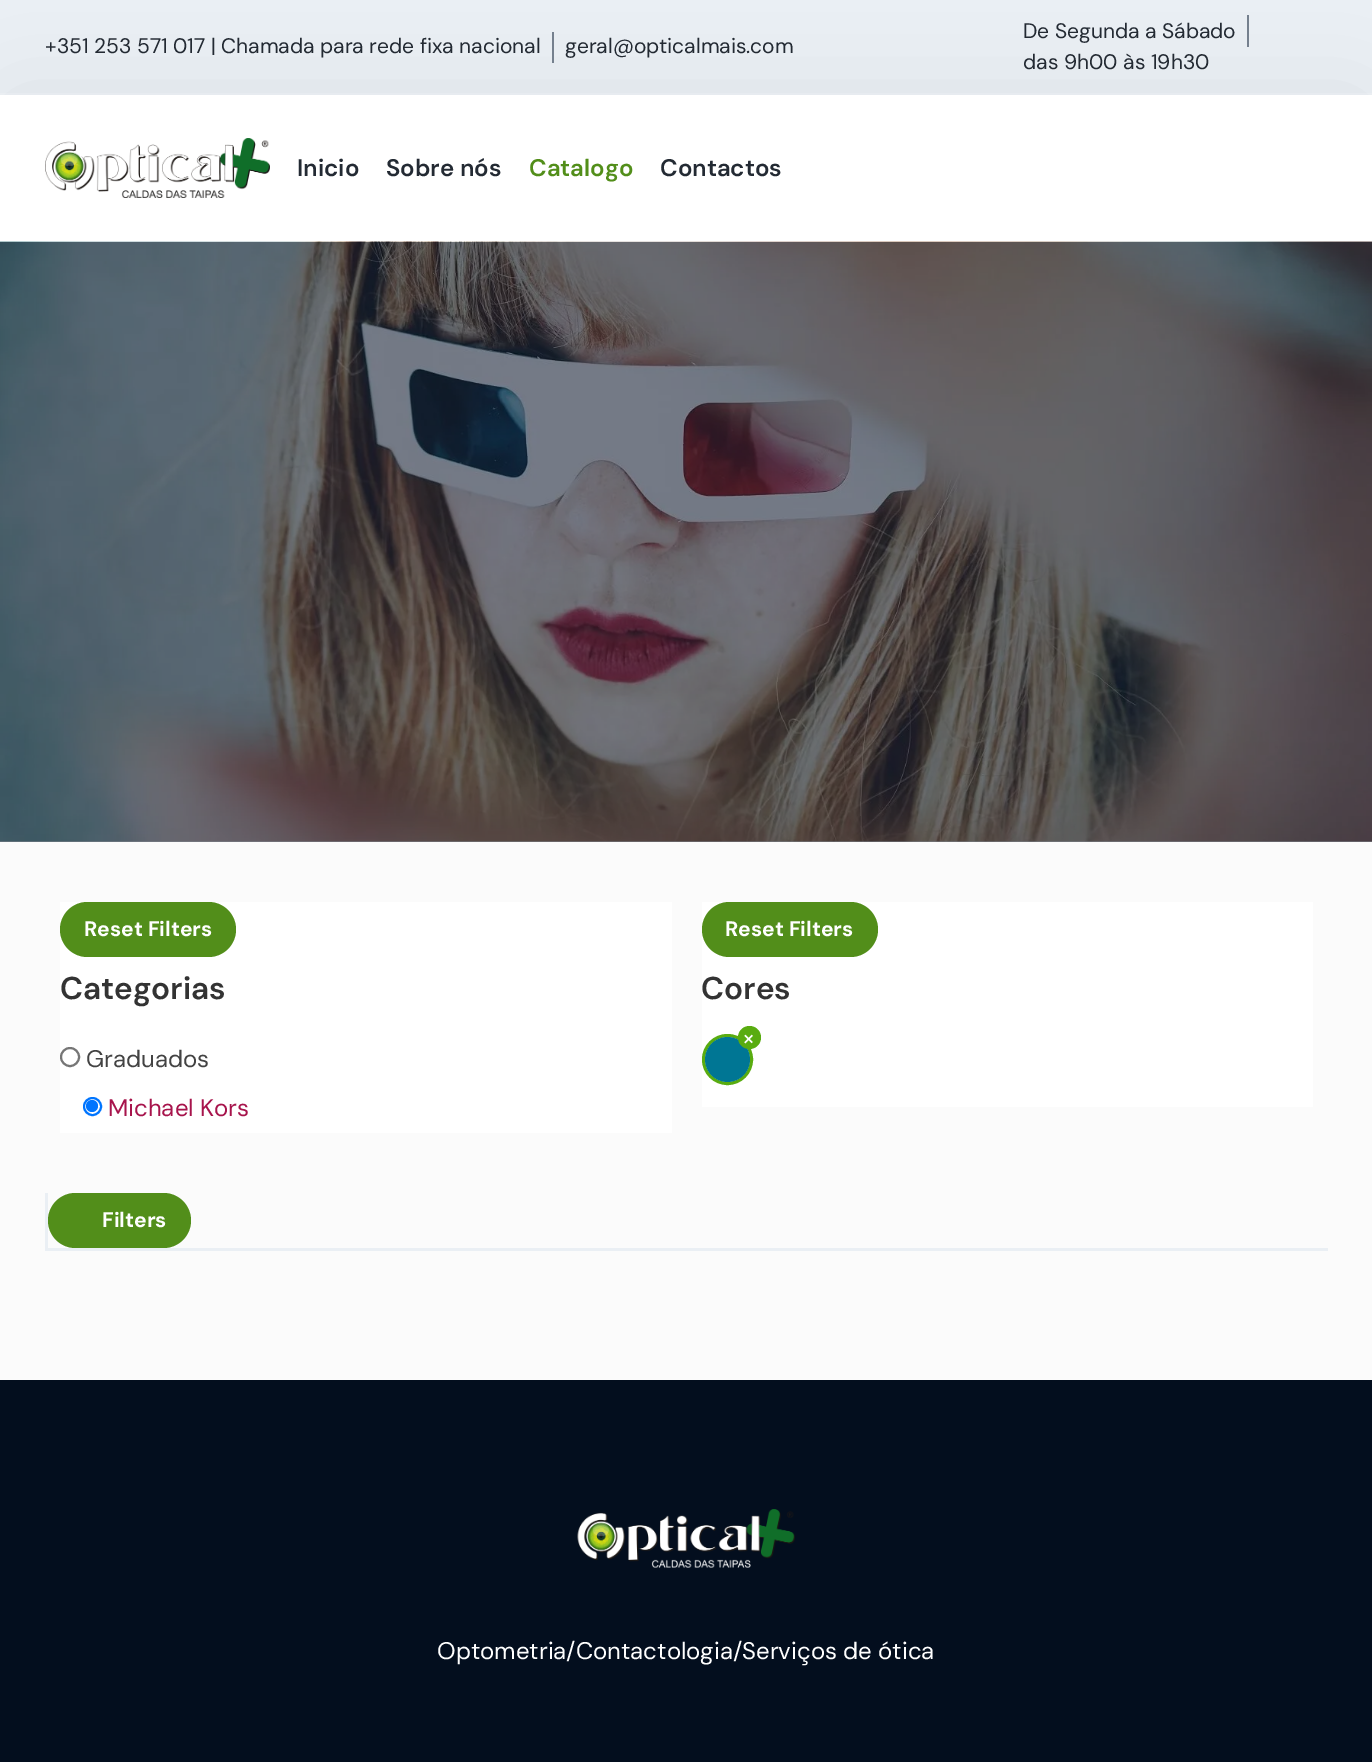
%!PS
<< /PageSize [1372 1762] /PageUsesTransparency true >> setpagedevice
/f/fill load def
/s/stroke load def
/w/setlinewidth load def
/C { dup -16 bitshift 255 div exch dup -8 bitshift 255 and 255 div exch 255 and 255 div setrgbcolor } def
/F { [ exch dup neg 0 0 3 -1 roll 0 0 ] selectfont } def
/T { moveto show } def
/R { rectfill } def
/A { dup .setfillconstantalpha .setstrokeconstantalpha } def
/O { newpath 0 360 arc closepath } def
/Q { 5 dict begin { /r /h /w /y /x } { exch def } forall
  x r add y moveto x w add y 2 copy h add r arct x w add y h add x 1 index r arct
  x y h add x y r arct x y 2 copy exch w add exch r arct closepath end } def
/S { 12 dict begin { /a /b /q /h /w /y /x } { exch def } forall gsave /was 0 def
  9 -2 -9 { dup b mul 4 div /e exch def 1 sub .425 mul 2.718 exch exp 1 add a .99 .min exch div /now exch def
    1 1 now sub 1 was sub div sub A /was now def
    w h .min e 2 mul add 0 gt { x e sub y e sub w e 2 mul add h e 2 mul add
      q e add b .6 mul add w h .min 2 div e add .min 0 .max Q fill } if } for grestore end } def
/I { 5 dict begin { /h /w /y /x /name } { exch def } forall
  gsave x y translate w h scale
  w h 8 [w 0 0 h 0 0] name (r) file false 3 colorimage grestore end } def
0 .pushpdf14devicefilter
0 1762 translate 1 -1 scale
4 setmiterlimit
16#FBFBFB C
0 0 1372 1762 R
16#EAEFF4 C
0 0 1372 95 R
16#000000 C
18 113 1337 111 0 45 .08 S
0.15 A
16#FFFFFF C
0 93 1372 2 R
/DMSans-Regular 21 F
1 A
16#232A33 C
(+351 253 571 017 | Chamada para rede fixa nacional) 45 53 T
16#75808E C
552 32 2 31 R
16#232A33 C
(geral@opticalmais.com) 565 53 T
(De Segunda a Sábado) 1023 38 T
16#75808E C
1247 15 2 32 R
16#232A33 C
(das 9h00 às 19h30) 1023 69 T
16#FFFFFF C
0 95 1372 147 R
(1.rgb) 45 138 225 60 I
/DMSans-SemiBold 24 F
16#232A33 C
(Inicio) 297 176 T
(Sobre nós) 386 176 T
16#528E1A C
(Catalogo) 529 176 T
16#232A33 C
(Contactos) 660 176 T
(2.rgb) 0 241 1372 601 I
0.5 A
16#030E1E C
0 242 1372 600 R
1 A
16#FFFFFF C
60 902 612 231 R
16#528E1A C
60 902 176 55 27.5 Q f
/DMSans-Bold 21 F
16#FFFFFF C
(Reset Filters) 84 936 T
/DMSans-SemiBold 31.5 F
16#333333 C
(Categorias) 60 999 T
16#767676 C
2 w
70 1057 9 O s
/DMSans-Regular 24 F
16#434343 C
(Graduados) 86 1067 T
16#0075FF C
92.5 1106.5 8.5 O s
92 1106 6 O f
16#A7144C C
(Michael Kors) 108 1116 T
16#FFFFFF C
702 902 611 205 R
16#528E1A C
702 902 176 55 27.5 Q f
/DMSans-Bold 21 F
16#FFFFFF C
(Reset Filters) 725 936 T
/DMSans-SemiBold 31.5 F
16#333333 C
(Cores) 701 999 T
16#59AC10 C
3 w
727.5 1059.5 24 O s
16#007694 C
727.5 1059.5 22.5 O f
16#59AC10 C
749.5 1037.5 11.5 O f
/DMSans-Regular 24 F
16#FFFFFF C
(×) 742 1046 T
16#EAEFF4 C
45 1248 1283 3 R
45 1193 3 58 R
16#528E1A C
48 1193 143 55 27.5 Q f
/DMSans-Bold 21 F
16#FFFFFF C
(Filters) 102 1227 T
16#030E1E C
0 1380 1372 382 R
(3.rgb) 577 1509 218 59 I
/DMSans-Regular 24 F
16#FFFFFF C
(Optometria/Contactologia/Serviços de ótica) 437 1659 T
.poppdf14devicefilter showpage
